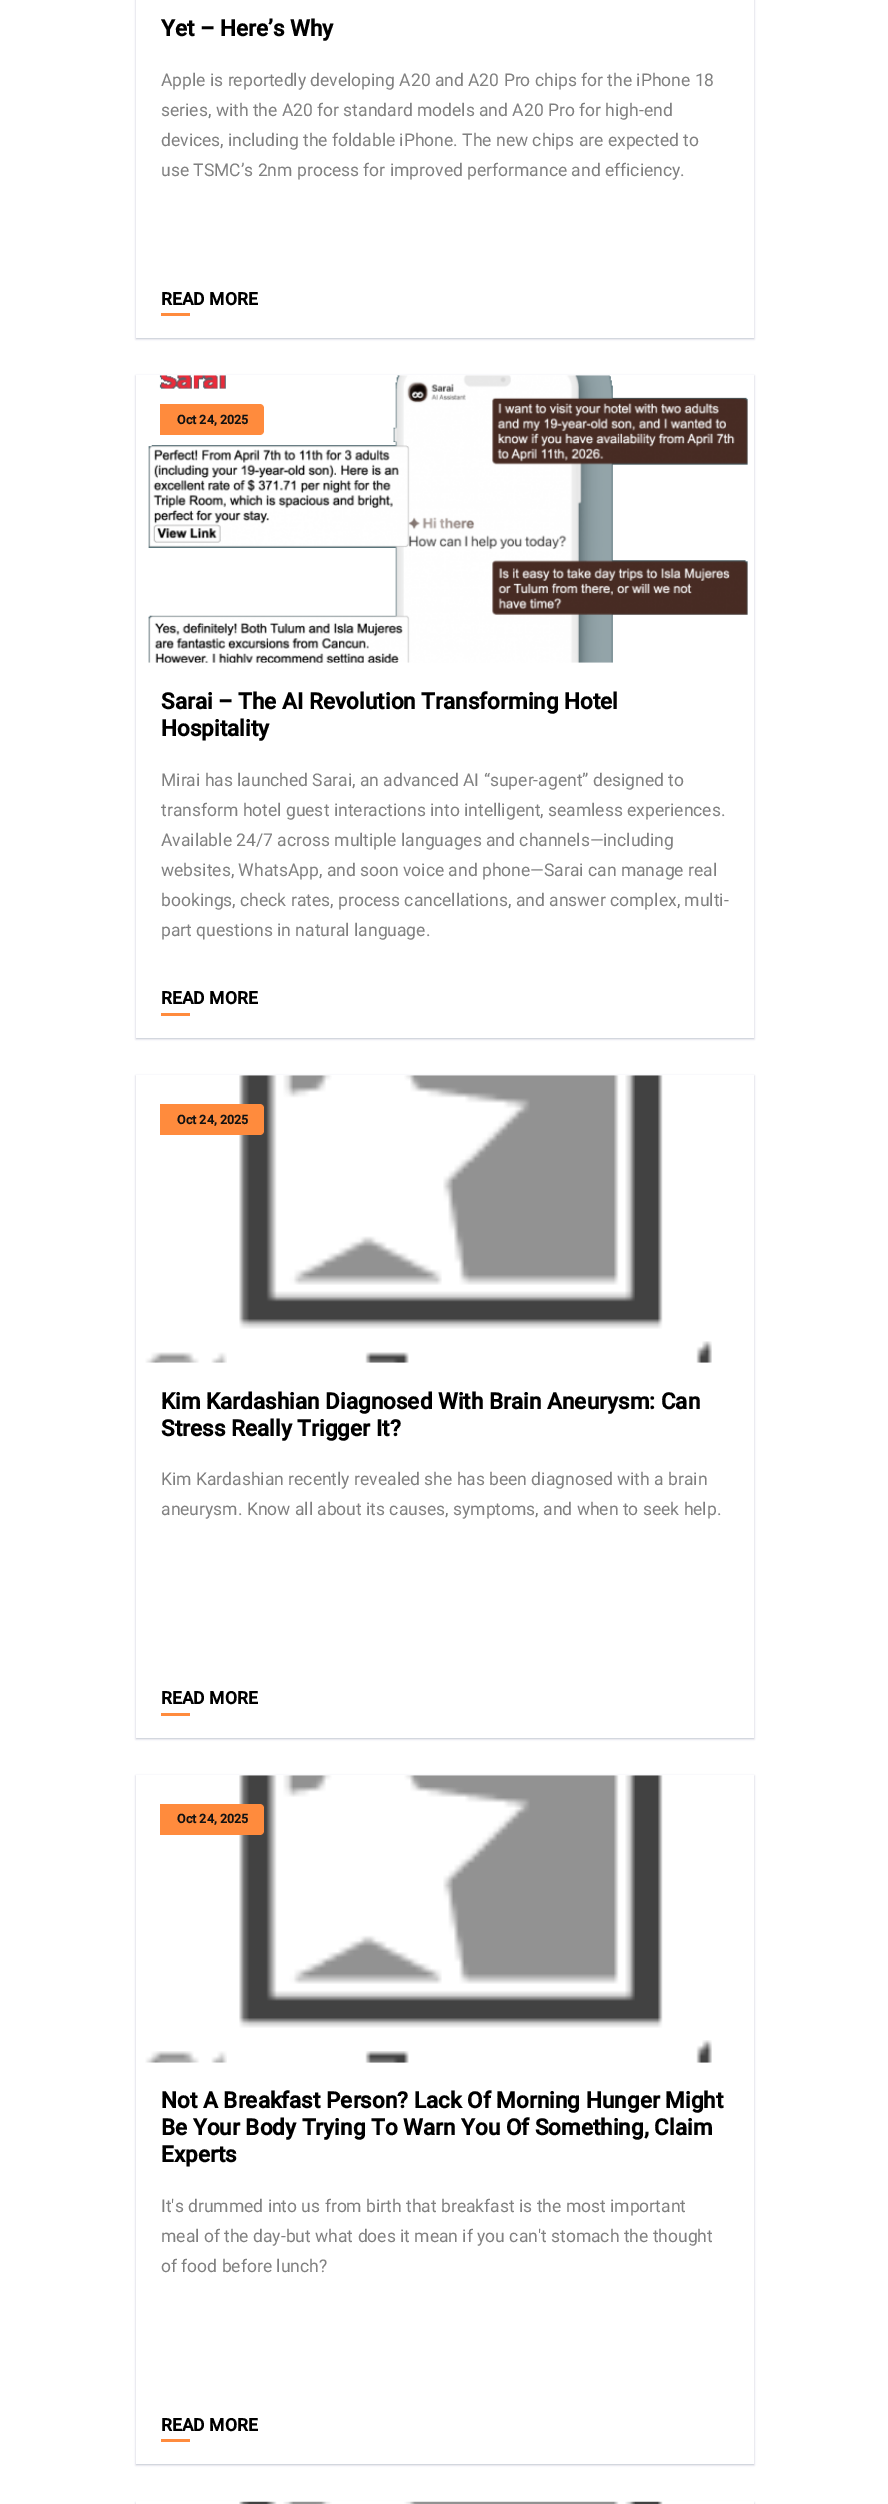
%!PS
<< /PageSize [888 2504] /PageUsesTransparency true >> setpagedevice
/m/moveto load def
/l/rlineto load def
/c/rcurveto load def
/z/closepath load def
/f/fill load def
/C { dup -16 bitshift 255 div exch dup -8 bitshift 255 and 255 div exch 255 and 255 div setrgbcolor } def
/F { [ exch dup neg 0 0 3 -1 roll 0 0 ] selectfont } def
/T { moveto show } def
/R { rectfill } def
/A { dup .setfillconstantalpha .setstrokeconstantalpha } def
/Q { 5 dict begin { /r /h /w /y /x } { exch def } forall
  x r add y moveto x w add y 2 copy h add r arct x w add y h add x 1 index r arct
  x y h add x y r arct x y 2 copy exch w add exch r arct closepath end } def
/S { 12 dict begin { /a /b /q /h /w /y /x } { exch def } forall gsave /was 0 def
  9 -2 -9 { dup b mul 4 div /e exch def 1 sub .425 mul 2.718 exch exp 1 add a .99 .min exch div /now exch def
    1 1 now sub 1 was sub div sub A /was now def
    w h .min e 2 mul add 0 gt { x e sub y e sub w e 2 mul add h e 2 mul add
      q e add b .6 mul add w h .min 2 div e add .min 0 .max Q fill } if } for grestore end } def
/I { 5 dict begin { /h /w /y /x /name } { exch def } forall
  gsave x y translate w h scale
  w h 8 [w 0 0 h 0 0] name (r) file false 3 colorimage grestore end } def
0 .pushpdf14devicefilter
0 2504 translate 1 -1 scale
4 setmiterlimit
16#FFFFFF C
0 0 888 2504 R
16#2B3B5D C
136 -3 618 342 0 1 .3 S
16#FFFFFF C
136 0 618 338 R
/Roboto-Bold 22.5 F
16#000000 C
(Yet – Here’s Why) 161 36 T
/Roboto-Regular 17.5 F
16#808080 C
(Apple is reportedly developing A20 and A20 Pro chips for the iPhone 18) 161 86 T
(series, with the A20 for standard models and A20 Pro for high-end) 161 116 T
(devices, including the foldable iPhone. The new chips are expected to) 161 146 T
(use TSMC’s 2nm process for improved performance and efficiency.) 161 176 T
/Roboto-Bold 17.5 F
16#000000 C
(READ MORE) 161 305 T
16#FF8B3D C
161 313 29 3 R
16#2B3B5D C
136 376 618 663 0 1 .3 S
16#FFFFFF C
136 375 618 663 R
(1.rgb) 148 375 600 288 I
16#FF8B3D C
160 404 m 100 0 l 2 0 4 2 4 4 c 0 23 l 0 2 -2 4 -4 4 c -100 0 l z f
/Roboto-Bold 12.5 F
16#111111 C
(Oct 24, 2025) 177 424 T
/Roboto-Bold 22.5 F
16#000000 C
(Sarai – The AI Revolution Transforming Hotel) 161 709 T
(Hospitality) 161 736 T
/Roboto-Regular 17.5 F
16#808080 C
(Mirai has launched Sarai, an advanced AI “super-agent” designed to) 161 786 T
(transform hotel guest interactions into intelligent, seamless experiences.) 161 816 T
(Available 24/7 across multiple languages and channels—including) 161 846 T
(websites, WhatsApp, and soon voice and phone—Sarai can manage real) 161 876 T
(bookings, check rates, process cancellations, and answer complex, multi-) 161 906 T
(part questions in natural language.) 161 936 T
/Roboto-Bold 17.5 F
16#000000 C
(READ MORE) 161 1004 T
16#FF8B3D C
161 1013 29 3 R
16#2B3B5D C
136 1076 618 663 0 1 .3 S
16#FFFFFF C
136 1075 618 663 R
(2.rgb) 145 1075 567 288 I
16#FF8B3D C
160 1104 m 100 0 l 2 0 4 2 4 4 c 0 23 l 0 2 -2 4 -4 4 c -100 0 l z f
/Roboto-Bold 12.5 F
16#111111 C
(Oct 24, 2025) 177 1124 T
/Roboto-Bold 22.5 F
16#000000 C
(Kim Kardashian Diagnosed With Brain Aneurysm: Can) 161 1409 T
(Stress Really Trigger It?) 161 1436 T
/Roboto-Regular 17.5 F
16#808080 C
(Kim Kardashian recently revealed she has been diagnosed with a brain) 161 1485 T
(aneurysm. Know all about its causes, symptoms, and when to seek help.) 161 1515 T
/Roboto-Bold 17.5 F
16#000000 C
(READ MORE) 161 1704 T
16#FF8B3D C
161 1713 29 3 R
16#2B3B5D C
136 1776 618 689 0 1 .3 S
16#FFFFFF C
136 1775 618 689 R
(3.rgb) 145 1775 567 288 I
16#FF8B3D C
160 1804 m 100 0 l 2 0 4 2 4 4 c 0 23 l 0 2 -2 4 -4 4 c -100 0 l z f
/Roboto-Bold 12.5 F
16#111111 C
(Oct 24, 2025) 177 1823 T
/Roboto-Bold 22.5 F
16#000000 C
(Not A Breakfast Person? Lack Of Morning Hunger Might) 161 2108 T
(Be Your Body Trying To Warn You Of Something, Claim) 161 2135 T
(Experts) 161 2162 T
/Roboto-Regular 17.5 F
16#808080 C
(It's drummed into us from birth that breakfast is the most important) 161 2212 T
(meal of the day-but what does it mean if you can't stomach the thought) 161 2242 T
(of food before lunch?) 161 2272 T
/Roboto-Bold 17.5 F
16#000000 C
(READ MORE) 161 2431 T
16#FF8B3D C
161 2439 29 3 R
16#2B3B5D C
136 2503 618 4 0 1 .3 S
16#FFFFFF C
136 2501 618 3 R
(4.rgb) 239 2501 424 3 I
.poppdf14devicefilter showpage
